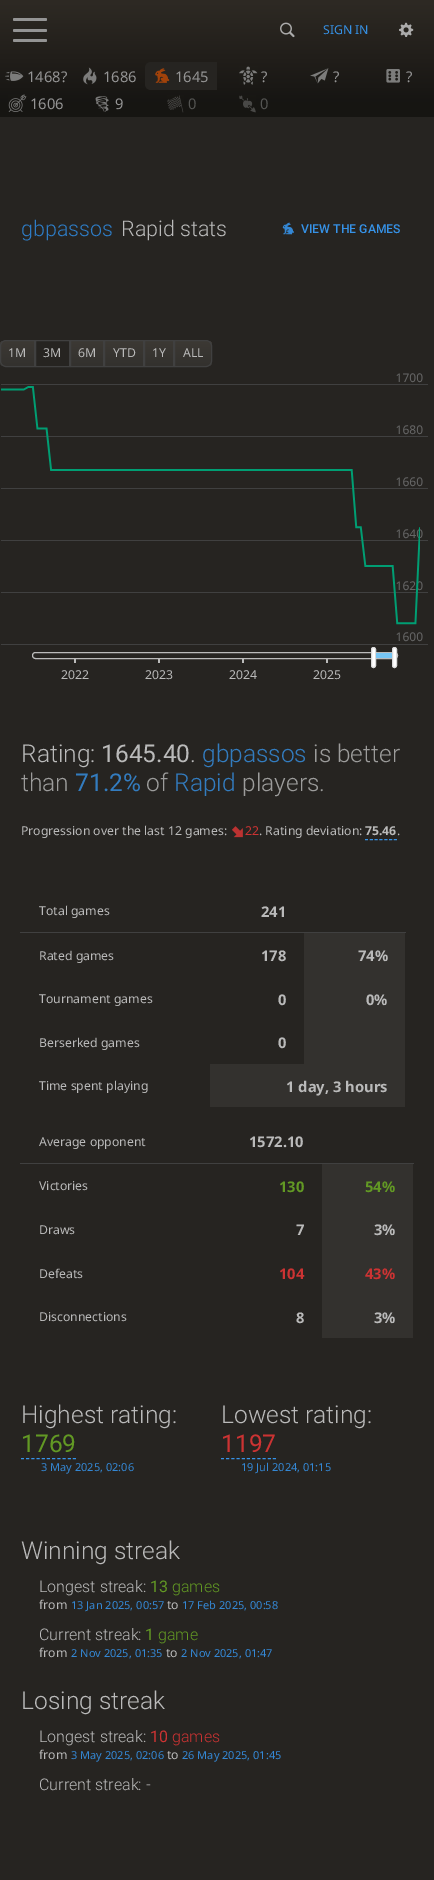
%!PS
<< /PageSize [434 1880] >> setpagedevice
/m/moveto load def
/l/rlineto load def
/c/rcurveto load def
/z/closepath load def
/f/fill load def
/s/stroke load def
/q/gsave load def
/Q_/grestore load def
/C { dup -16 bitshift 255 div exch dup -8 bitshift 255 and 255 div exch 255 and 255 div setrgbcolor } def
/F { [ exch dup neg 0 0 3 -1 roll 0 0 ] selectfont } def
/T { moveto show } def
/R { rectfill } def
/Q { 5 dict begin { /r /h /w /y /x } { exch def } forall
  x r add y moveto x w add y 2 copy h add r arct x w add y h add x 1 index r arct
  x y h add x y r arct x y 2 copy exch w add exch r arct closepath end } def
/I { 5 dict begin { /h /w /y /x /name } { exch def } forall
  gsave x y translate w h scale
  w h 8 [w 0 0 h 0 0] name (r) file false 3 colorimage grestore end } def
0 1880 translate 1 -1 scale
4 setmiterlimit
16#FFFFFF C
0 0 434 1880 R
q 0 0 m 434 0 l 0 117 l -434 0 l z clip newpath
<< /ShadingType 2 /ColorSpace /DeviceRGB /Coords [217 0 217 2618] /Extend [true true] /Function << /FunctionType 3 /Domain [0 1] /Functions [<< /FunctionType 2 /Domain [0 1] /C0 [.18 .165 .141] /C1 [.086 .082 .071] /N 1 >> << /FunctionType 2 /Domain [0 1] /C0 [.086 .082 .071] /C1 [.086 .082 .071] /N 1 >>] /Bounds [.04] /Encode [0 1 0 1] >> >> shfill Q_
16#949494 C
13 29 34 3 1.5 Q f
13 18 34 3 1.5 Q f
13 39 34 3 1.5 Q f
(1.rgb) 280 22 15 16 I
/NotoSans-Regular 12.25 F
16#3692E7 C
(SIGN IN) 323 34 T
(2.rgb) 399 22 15 15 I
(3.rgb) 5 71 19 10 I
/NotoSans-Regular 14.75 F
16#949494 C
(1468?) 27 82 T
(4.rgb) 83 67 14 18 I
(1686) 103 82 T
16#262421 C
151 62 m 66 0 l 0 28 l -66 0 l -3.5 0 -6 -2.5 -6 -6 c 0 -16 l 0 -3.5 2.5 -6 6 -6 c z f
(5.rgb) 155 68 15 15 I
16#949494 C
(1645) 175 82 T
(6.rgb) 239 66 19 19 I
(?) 261 82 T
(7.rgb) 310 68 19 16 I
(?) 333 82 T
(8.rgb) 386 69 14 14 I
(?) 406 82 T
(9.rgb) 8 94 19 18 I
(1606) 30 109 T
(10.rgb) 95 96 14 16 I
(9) 115 109 T
(11.rgb) 167 95 17 18 I
16#555553 C
(0) 188 109 T
(12.rgb) 239 95 17 18 I
(0) 260 109 T
16#262421 C
0 117 434 1763 R
/Roboto-Light 21.5 F
16#2E7CC5 C
(gbpassos) 21 236 T
16#BABABA C
(Rapid stats) 121 236 T
(13.rgb) 282 222 12 13 I
/Roboto-Medium 12.25 F
16#3692E7 C
(VIEW THE GAMES) 301 233 T
q
6 340 m 29 0 l 0 27 l -29 0 l -3.5 0 -6 -2.5 -6 -6 c 0 -15 l 0 -3.5 2.5 -6 6 -6 c z clip newpath
q 0 341 m 34 0 l 0 25 l -34 0 l z clip newpath
<< /ShadingType 2 /ColorSpace /DeviceRGB /Coords [18 341 18 366] /Extend [true true] /Function << /FunctionType 2 /Domain [0 1] /C0 [.235 .224 .204] /C1 [.2 .192 .18] /N 1 >> >> shfill Q_
Q_
16#404040 C
6 340.5 m 28.5 0 l 0 26 l -28.5 0 l -3 0 -5.5 -2.5 -5.5 -5.5 c 0 -15 l 0 -3 2.5 -5.5 5.5 -5.5 c z s
/NotoSans-Regular 12.25 F
16#BABABA C
(1M) 8 357 T
16#404040 C
35.5 340.5 34 26 rectstroke
16#BABABA C
(3M) 43 357 T
q 71 341 m 32 0 l 0 25 l -32 0 l z clip newpath
<< /ShadingType 2 /ColorSpace /DeviceRGB /Coords [87 341 87 366] /Extend [true true] /Function << /FunctionType 2 /Domain [0 1] /C0 [.235 .224 .204] /C1 [.2 .192 .18] /N 1 >> >> shfill Q_
16#404040 C
70.5 340.5 33 26 rectstroke
16#BABABA C
(6M) 78 357 T
q 105 341 m 38 0 l 0 25 l -38 0 l z clip newpath
<< /ShadingType 2 /ColorSpace /DeviceRGB /Coords [124 341 124 366] /Extend [true true] /Function << /FunctionType 2 /Domain [0 1] /C0 [.235 .224 .204] /C1 [.2 .192 .18] /N 1 >> >> shfill Q_
16#404040 C
104.5 340.5 39 26 rectstroke
16#BABABA C
(YTD) 113 357 T
q 145 341 m 28 0 l 0 25 l -28 0 l z clip newpath
<< /ShadingType 2 /ColorSpace /DeviceRGB /Coords [159 341 159 366] /Extend [true true] /Function << /FunctionType 2 /Domain [0 1] /C0 [.235 .224 .204] /C1 [.2 .192 .18] /N 1 >> >> shfill Q_
16#404040 C
144.5 340.5 29 26 rectstroke
16#BABABA C
(1Y) 152 357 T
q
174 340 m 32 0 l 3.5 0 6 2.5 6 6 c 0 15 l 0 3.5 -2.5 6 -6 6 c -32 0 l z clip newpath
q 175 341 m 37 0 l 0 25 l -37 0 l z clip newpath
<< /ShadingType 2 /ColorSpace /DeviceRGB /Coords [193 341 193 366] /Extend [true true] /Function << /FunctionType 2 /Domain [0 1] /C0 [.235 .224 .204] /C1 [.2 .192 .18] /N 1 >> >> shfill Q_
Q_
16#404040 C
174.5 340.5 m 31.5 0 l 3 0 5.5 2.5 5.5 5.5 c 0 15 l 0 3 -2.5 5.5 -5.5 5.5 c -31.5 0 l z s
16#BABABA C
(ALL) 183 357 T
(14.rgb) 1 373 427 272 I
32.5 652.5 365 6 3 Q s
16#FFFFFF C
371.5 647.5 4 20 2 Q q f Q_
16#D9D9D9 C
s
16#76C5F3 C
376 653 21 5 R
16#FFFFFF C
392.5 647.5 4 20 2 Q q f Q_
16#D9D9D9 C
s
16#BABABA C
74 658 2 5 R
158 658 2 5 R
242 658 2 5 R
326 658 2 5 R
(2022) 61 679 T
(2023) 145 679 T
(2024) 229 679 T
(2025) 313 679 T
/Roboto-Light 24.5 F
(Rating:) 21 762 T
/Roboto-Regular 24.5 F
(1645.40) 101 762 T
/Roboto-Light 24.5 F
(.) 190 762 T
16#337CBF C
(gbpassos) 202 762 T
16#9C9C9B C
(is better) 313 762 T
(than) 21 791 T
/Roboto-Regular 24.5 F
16#337CBF C
(71.2%) 75 791 T
/Roboto-Light 24.5 F
16#9C9C9B C
(of) 146 791 T
16#337CBF C
(Rapid) 174 791 T
16#9C9C9B C
(players.) 242 791 T
/NotoSans-Regular 12.25 F
16#BABABA C
(Progression over the last 12 games:) 21 835 T
(15.rgb) 232 826 11 12 I
16#CC3333 C
(22) 245 835 T
16#BABABA C
(. Rating deviation:) 259 835 T
/NotoSans-Bold 12.25 F
(75.46) 365 835 T
16#3692E7 C
[3 1.83] 0 setdash
365 839.5 m 32 0 l s
/NotoSans-Regular 12.25 F
16#BABABA C
(.) 397 835 T
16#404040 C
20 932 386 1 R
16#BABABA C
(Total games) 39 915 T
/NotoSans-Bold 14.75 F
(241) 261 917 T
/NotoSans-Regular 12.25 F
(Rated games) 39 960 T
/NotoSans-Bold 14.75 F
(178) 261 961 T
16#33312E C
304 933 101 131 R
16#BABABA C
(74%) 358 961 T
/NotoSans-Regular 12.25 F
(Tournament games) 39 1003 T
/NotoSans-Bold 14.75 F
(0) 278 1005 T
(0%) 366 1005 T
/NotoSans-Regular 12.25 F
(Berserked games) 39 1047 T
/NotoSans-Bold 14.75 F
(0) 278 1048 T
/NotoSans-Regular 12.25 F
(Time spent playing) 39 1090 T
16#33312E C
210 1064 195 43 R
/NotoSans-Bold 14.75 F
16#BABABA C
(1 day, 3 hours) 286 1092 T
16#404040 C
20 1163 394 1 R
/NotoSans-Regular 12.25 F
16#BABABA C
(Average opponent) 39 1146 T
/NotoSans-Bold 14.75 F
(1572.10) 249 1147 T
/NotoSans-Regular 12.25 F
(Victories) 39 1190 T
/NotoSans-Bold 14.75 F
16#629924 C
(130) 279 1192 T
16#33312E C
322 1164 91 174 R
16#629924 C
(54%) 365 1192 T
/NotoSans-Regular 12.25 F
16#BABABA C
(Draws) 39 1234 T
/NotoSans-Bold 14.75 F
(7) 296 1235 T
(3%) 374 1235 T
/NotoSans-Regular 12.25 F
(Defeats) 39 1278 T
/NotoSans-Bold 14.75 F
16#CC3333 C
(104) 279 1279 T
(43%) 365 1279 T
/NotoSans-Regular 12.25 F
16#BABABA C
(Disconnections) 39 1321 T
/NotoSans-Bold 14.75 F
(8) 296 1323 T
(3%) 374 1323 T
/Roboto-Light 24.5 F
(Highest rating:) 21 1423 T
/Roboto-Regular 24.5 F
16#629924 C
(1769) 21 1452 T
16#3692E7 C
[3 2.2] 0 setdash
21 1458.5 m 55 0 l s
/NotoSans-Regular 11 F
16#3487D3 C
(3 May 2025, 02:06) 41 1471 T
/Roboto-Light 24.5 F
16#BABABA C
(Lowest rating:) 221 1423 T
/Roboto-Regular 24.5 F
16#CC3333 C
(1197) 221 1452 T
16#3692E7 C
221 1458.5 m 55 0 l s
/NotoSans-Regular 11 F
16#3487D3 C
(19 Jul 2024, 01:15) 241 1471 T
/Roboto-Light 24.5 F
16#BABABA C
(Winning streak) 21 1559 T
/Roboto-Light 16 F
(Longest streak:) 39 1592 T
/Roboto-Regular 16 F
16#629924 C
(13) 150 1592 T
/Roboto-Light 16 F
(games) 172 1592 T
/NotoSans-Regular 12.25 F
16#BABABA C
(from) 39 1609 T
/NotoSans-Regular 11 F
16#3487D3 C
(13 Jan 2025, 00:57) 71 1609 T
/NotoSans-Regular 12.25 F
16#BABABA C
(to) 167 1609 T
/NotoSans-Regular 11 F
16#3487D3 C
(17 Feb 2025, 00:58) 182 1609 T
/Roboto-Light 16 F
16#BABABA C
(Current streak:) 39 1640 T
/Roboto-Regular 16 F
16#629924 C
(1) 145 1640 T
/Roboto-Light 16 F
(game) 158 1640 T
/NotoSans-Regular 12.25 F
16#BABABA C
(from) 39 1657 T
/NotoSans-Regular 11 F
16#3487D3 C
(2 Nov 2025, 01:35) 71 1657 T
/NotoSans-Regular 12.25 F
16#BABABA C
(to) 166 1657 T
/NotoSans-Regular 11 F
16#3487D3 C
(2 Nov 2025, 01:47) 181 1657 T
/Roboto-Light 24.5 F
16#BABABA C
(Losing streak) 21 1709 T
/Roboto-Light 16 F
(Longest streak:) 39 1742 T
/Roboto-Regular 16 F
16#CC3333 C
(10) 150 1742 T
/Roboto-Light 16 F
(games) 172 1742 T
/NotoSans-Regular 12.25 F
16#BABABA C
(from) 39 1759 T
/NotoSans-Regular 11 F
16#3487D3 C
(3 May 2025, 02:06) 71 1759 T
/NotoSans-Regular 12.25 F
16#BABABA C
(to) 167 1759 T
/NotoSans-Regular 11 F
16#3487D3 C
(26 May 2025, 01:45) 182 1759 T
/Roboto-Light 16 F
16#BABABA C
(Current streak: -) 39 1790 T
showpage
